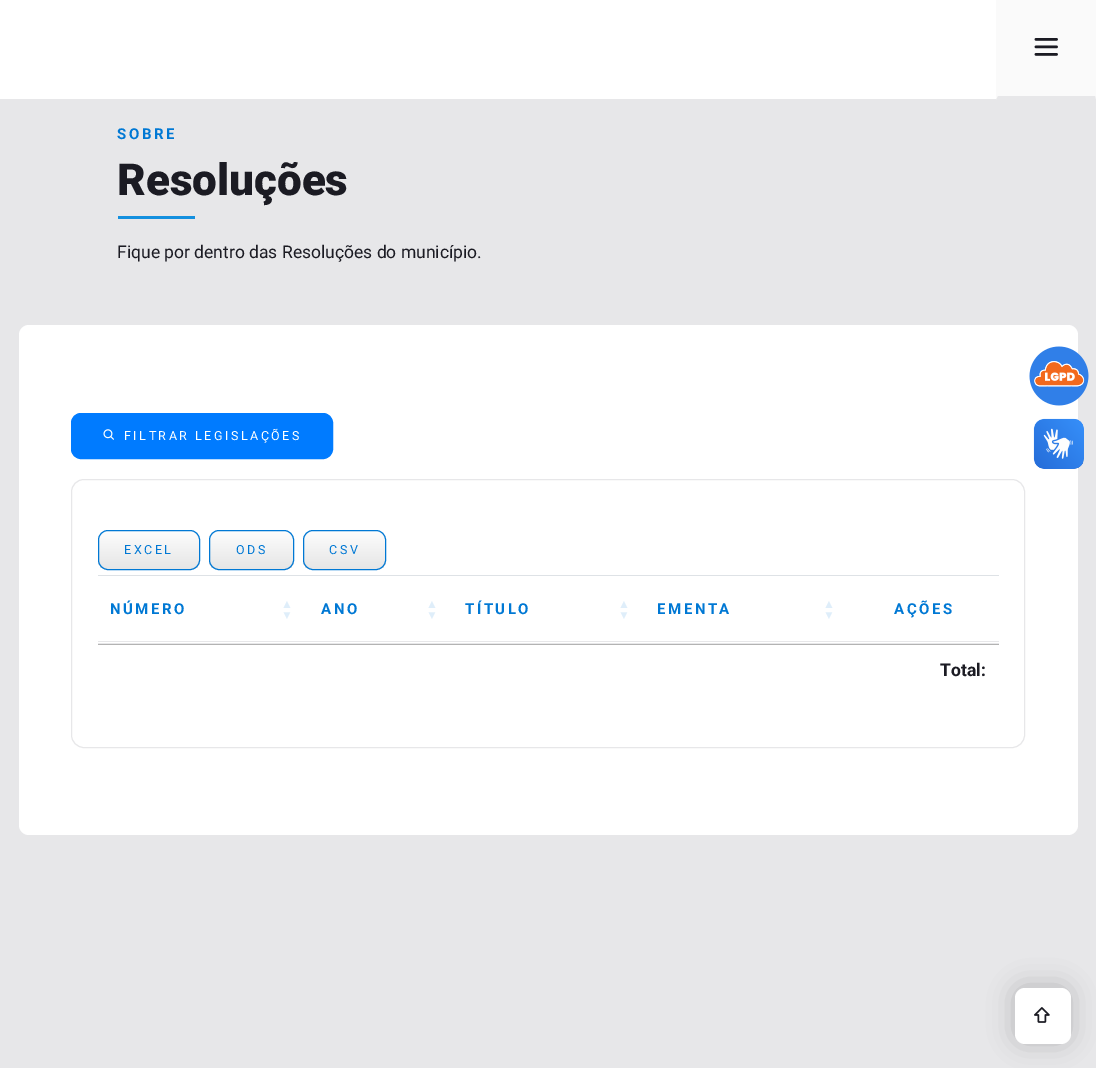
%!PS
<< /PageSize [1096 1068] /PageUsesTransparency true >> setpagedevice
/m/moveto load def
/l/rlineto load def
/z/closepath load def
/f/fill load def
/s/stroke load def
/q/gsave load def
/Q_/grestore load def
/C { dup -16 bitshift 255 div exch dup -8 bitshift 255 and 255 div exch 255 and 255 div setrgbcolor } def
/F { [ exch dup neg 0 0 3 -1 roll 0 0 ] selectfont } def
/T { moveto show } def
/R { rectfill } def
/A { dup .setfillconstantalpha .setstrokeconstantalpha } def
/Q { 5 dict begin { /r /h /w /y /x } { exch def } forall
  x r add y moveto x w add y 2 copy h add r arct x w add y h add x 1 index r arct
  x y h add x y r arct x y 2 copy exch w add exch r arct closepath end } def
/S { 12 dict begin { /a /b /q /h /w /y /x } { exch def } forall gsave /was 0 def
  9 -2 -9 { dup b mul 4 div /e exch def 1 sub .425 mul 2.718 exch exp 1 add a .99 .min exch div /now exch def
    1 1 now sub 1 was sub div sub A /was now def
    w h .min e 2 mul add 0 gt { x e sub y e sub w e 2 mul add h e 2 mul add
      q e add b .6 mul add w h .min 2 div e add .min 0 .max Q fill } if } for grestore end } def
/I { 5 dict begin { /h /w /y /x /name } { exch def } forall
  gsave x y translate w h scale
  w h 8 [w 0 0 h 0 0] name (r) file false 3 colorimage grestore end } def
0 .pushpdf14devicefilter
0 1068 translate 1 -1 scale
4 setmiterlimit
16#FFFFFF C
0 0 1096 1068 R
16#E7E7E9 C
0 99 996 1 R
16#FAFAFA C
996 0 100 100 R
16#E7E7E9 C
1096 100 m -100 0 l 2 -4 l 97 0 l z f
(1.rgb) 1034 38 24 18 I
0 100 1096 968 R
/Roboto-Bold 15 F
16#0078D4 C
117 139 m 2.5 0 (SOBRE) ashow
/Roboto-Black 44 F
16#1B1B23 C
(Resoluções) 117 195 T
16#1490DF C
118 216 77 3 R
/Roboto-Regular 17.5 F
16#1B1B23 C
(Fique por dentro das Resoluções do município.) 117 258 T
16#FFFFFF C
19 325 1059 510 10 Q f
16#007BFF C
71.5 413.5 261 45 9.5 Q q f Q_
s
(2.rgb) 103 429 11 11 I
/Roboto-Regular 12.5 F
16#FFFFFF C
124 440 m 2.5 0 (FILTRAR LEGISLAÇÕES) ashow
16#E7E7E9 C
71.5 479.5 953 268 12.5 Q s
q
98 530 102 40 10 Q clip newpath
q 98 531 m 102 0 l 0 38 l -102 0 l z clip newpath
<< /ShadingType 2 /ColorSpace /DeviceRGB /Coords [149 531 149 569] /Extend [true true] /Function << /FunctionType 2 /Domain [0 1] /C0 [.992 .992 .992] /C1 [.902 .902 .902] /N 1 >> >> shfill Q_
Q_
16#0078D4 C
98.5 530.5 101 39 9.5 Q s
124 554 m 2.5 0 (EXCEL) ashow
q
209 530 85 40 10 Q clip newpath
q 209 531 m 85 0 l 0 38 l -85 0 l z clip newpath
<< /ShadingType 2 /ColorSpace /DeviceRGB /Coords [251 531 251 569] /Extend [true true] /Function << /FunctionType 2 /Domain [0 1] /C0 [.992 .992 .992] /C1 [.902 .902 .902] /N 1 >> >> shfill Q_
Q_
209.5 530.5 84 39 9.5 Q s
236 554 m 2.5 0 (ODS) ashow
q
303 530 83 40 10 Q clip newpath
q 303 531 m 83 0 l 0 38 l -83 0 l z clip newpath
<< /ShadingType 2 /ColorSpace /DeviceRGB /Coords [344 531 344 569] /Extend [true true] /Function << /FunctionType 2 /Domain [0 1] /C0 [.992 .992 .992] /C1 [.902 .902 .902] /N 1 >> >> shfill Q_
Q_
303.5 530.5 82 39 9.5 Q s
329 554 m 2.5 0 (CSV) ashow
16#DEE2E6 C
98 575 752 1 R
16#E7E7E9 C
98 641 752 1 R
/Roboto-Bold 15 F
16#0078D4 C
110 614 m 2.5 0 (NÚMERO) ashow
/LiberationSans-Bold 12 F
16#DFEEFA C
281 608 m 2.5 0 (▲) ashow
281 619 m 2.5 0 (▼) ashow
/Roboto-Bold 15 F
16#0078D4 C
321 614 m 2.5 0 (ANO) ashow
/LiberationSans-Bold 12 F
16#DFEEFA C
426 608 m 2.5 0 (▲) ashow
426 619 m 2.5 0 (▼) ashow
/Roboto-Bold 15 F
16#0078D4 C
465 614 m 2.5 0 (TÍTULO) ashow
/LiberationSans-Bold 12 F
16#DFEEFA C
618 608 m 2.5 0 (▲) ashow
618 619 m 2.5 0 (▼) ashow
/Roboto-Bold 15 F
16#0078D4 C
657 614 m 2.5 0 (EMENTA) ashow
/LiberationSans-Bold 12 F
16#DFEEFA C
823 608 m 2.5 0 (▲) ashow
823 619 m 2.5 0 (▼) ashow
16#DEE2E6 C
850 575 149 1 R
16#E7E7E9 C
850 641 149 1 R
/Roboto-Bold 15 F
16#0078D4 C
894 614 m 2.5 0 (AÇÕES) ashow
16#E7E7E9 C
98 643 752 1 R
850 643 149 1 R
16#B3B3B3 C
98 644 901 1 R
/Roboto-Bold 17.5 F
16#1B1B23 C
(Total:) 940 676 T
(3.rgb) 1029 346 60 60 I
(4.rgb) 1033 418 51 51 I
(5.rgb) 1034 419 50 50 I
16#000000 C
1014 986 56 57 10 12.5 .2 S
16#FFFFFF C
1015 988 56 56 10 Q f
(6.rgb) 1034 1007 16 16 I
.poppdf14devicefilter showpage
